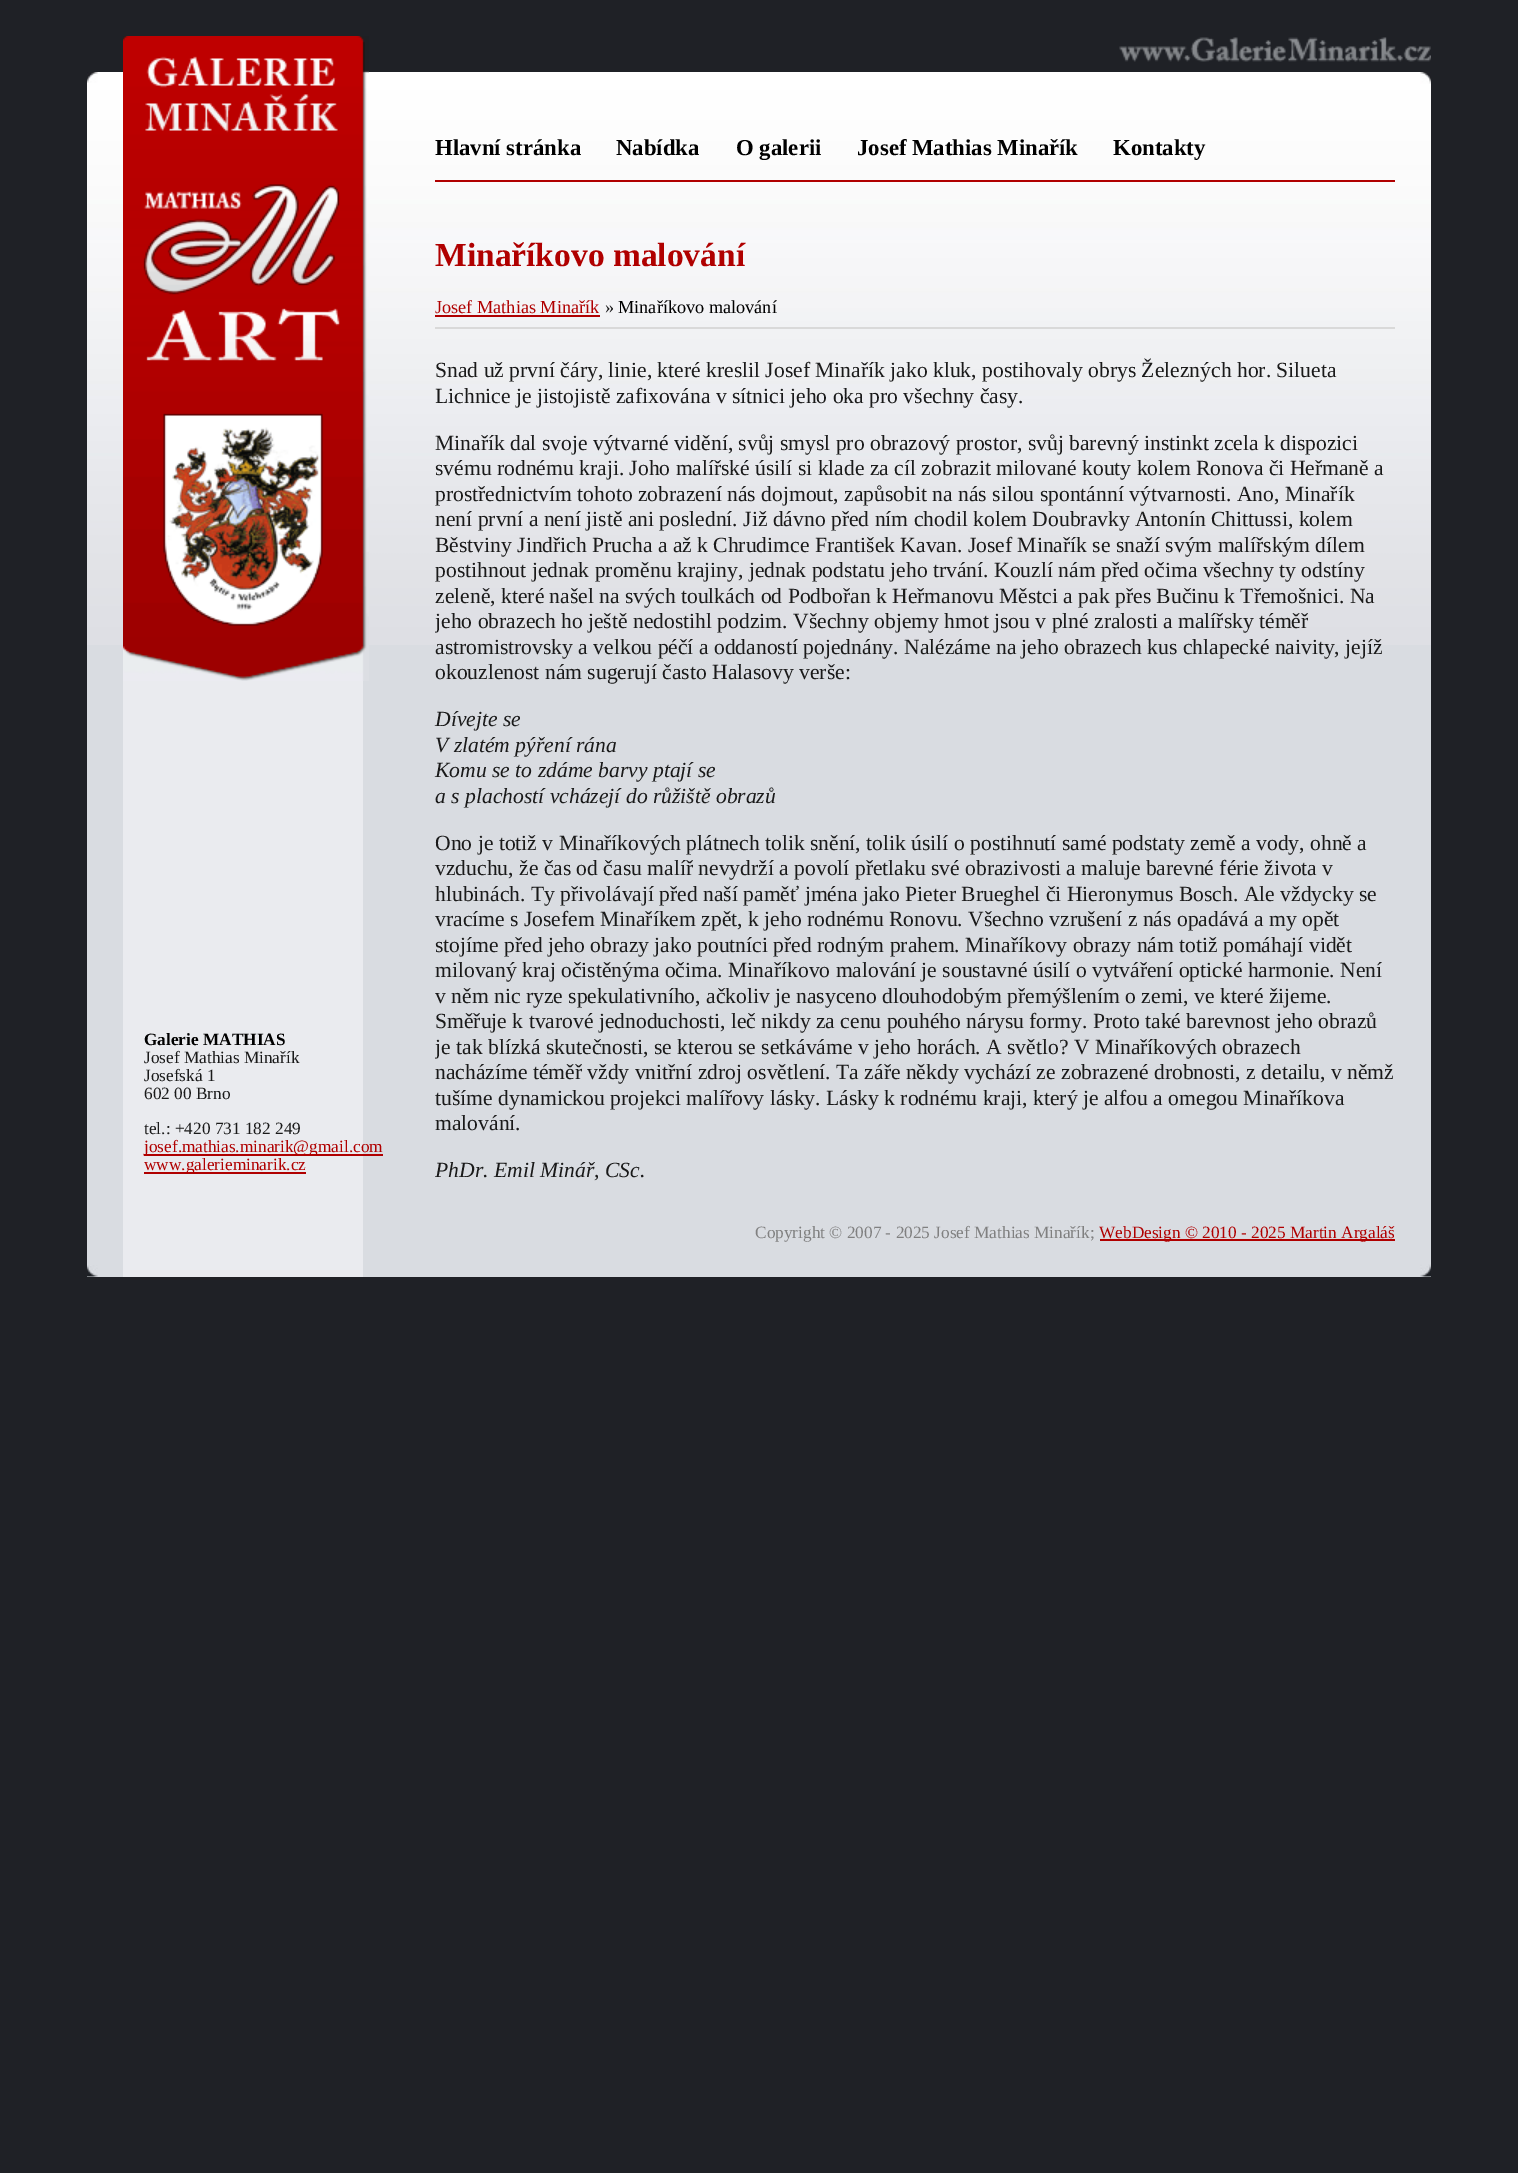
%!PS
<< /PageSize [1518 2173] >> setpagedevice
/q/gsave load def
/Q_/grestore load def
/C { dup -16 bitshift 255 div exch dup -8 bitshift 255 and 255 div exch 255 and 255 div setrgbcolor } def
/F { [ exch dup neg 0 0 3 -1 roll 0 0 ] selectfont } def
/T { moveto show } def
/R { rectfill } def
/I { 5 dict begin { /h /w /y /x /name } { exch def } forall
  gsave x y translate w h scale
  w h 8 [w 0 0 h 0 0] name (r) file false 3 colorimage grestore end } def
0 2173 translate 1 -1 scale
4 setmiterlimit
16#1F2126 C
0 0 1518 2173 R
16#D9DCE1 C
87 645 1344 632 R
(1.rgb) 87 72 1344 573 I
(2.rgb) 87 72 11 11 I
(3.rgb) 1420 72 11 12 I
(4.rgb) 87 1265 11 12 I
(5.rgb) 1420 1264 11 13 I
16#EAEBEF C
123 681 240 596 R
(6.rgb) 123 36 246 645 I
(7.rgb) 1119 37 312 29 I
/LiberationSerif-Bold 17.25 F
16#000000 C
(Galerie MATHIAS) 144 1045 T
/LiberationSerif-Regular 17.25 F
16#1A1A1A C
(Josef Mathias Minařík) 144 1063 T
(Josefská 1) 144 1081 T
(602 00 Brno) 144 1099 T
(tel.: +420 731 182 249) 144 1134 T
16#B00000 C
144 1154 239 2 R
(josef.mathias.minarik@gmail.com) 144 1152 T
144 1172 162 2 R
(www.galerieminarik.cz) 144 1170 T
435 180 960 2 R
/LiberationSerif-Bold 22.75 F
16#000000 C
(Hlavní stránka) 435 155 T
(Nabídka) 616 155 T
(O galerii) 736 155 T
(Josef Mathias Minařík) 857 155 T
(Kontakty) 1113 155 T
/LiberationSerif-Bold 33.5 F
16#B00000 C
(Minaříkovo malování) 435 266 T
16#D9D9D9 C
435 327 960 2 R
/LiberationSerif-Regular 18.25 F
16#B00000 C
(Josef Mathias Minařík) 435 313 T
435 315 165 2 R
16#1A1A1A C
(») 605 313 T
16#000000 C
(Minaříkovo malování) 618 313 T
/LiberationSerif-Regular 21.6 F
16#1A1A1A C
(Snad už první čáry, linie, které kreslil Josef Minařík jako kluk, postihovaly obrys Železných hor. Silueta) 435 377 T
(Lichnice je jistojistě zafixována v sítnici jeho oka pro všechny časy.) 435 403 T
(Minařík dal svoje výtvarné vidění, svůj smysl pro obrazový prostor, svůj barevný instinkt zcela k dispozici) 435 450 T
(svému rodnému kraji. Joho malířské úsilí si klade za cíl zobrazit milované kouty kolem Ronova či Heřmaně a) 435 475 T
(prostřednictvím tohoto zobrazení nás dojmout, zapůsobit na nás silou spontánní výtvarnosti. Ano, Minařík) 435 501 T
(není první a není jistě ani poslední. Již dávno před ním chodil kolem Doubravky Antonín Chittussi, kolem) 435 526 T
(Běstviny Jindřich Prucha a až k Chrudimce František Kavan. Josef Minařík se snaží svým malířským dílem) 435 552 T
(postihnout jednak proměnu krajiny, jednak podstatu jeho trvání. Kouzlí nám před očima všechny ty odstíny) 435 577 T
(zeleně, které našel na svých toulkách od Podbořan k Heřmanovu Městci a pak přes Bučinu k Třemošnici. Na) 435 603 T
q
435 236 960 969 rectclip
(jeho obrazech ho ještě nedostihl podzim. Všechny objemy hmot jsou v plné zralosti a malířsky téměř) 435 628 T
Q_
(astromistrovsky a velkou péčí a oddaností pojednány. Nalézáme na jeho obrazech kus chlapecké naivity, jejíž) 435 654 T
(okouzlenost nám sugerují často Halasovy verše:) 435 679 T
/LiberationSerif-Italic 21.6 F
(Dívejte se) 435 726 T
(V zlatém pýření rána) 435 752 T
(Komu se to zdáme barvy ptají se) 435 777 T
(a s plachostí vcházejí do růžiště obrazů) 435 803 T
/LiberationSerif-Regular 21.6 F
(Ono je totiž v Minaříkových plátnech tolik snění, tolik úsilí o postihnutí samé podstaty země a vody, ohně a) 435 850 T
(vzduchu, že čas od času malíř nevydrží a povolí přetlaku své obrazivosti a maluje barevné férie života v) 435 875 T
(hlubinách. Ty přivolávají před naší paměť jména jako Pieter Brueghel či Hieronymus Bosch. Ale vždycky se) 435 901 T
(vracíme s Josefem Minaříkem zpět, k jeho rodnému Ronovu. Všechno vzrušení z nás opadává a my opět) 435 926 T
(stojíme před jeho obrazy jako poutníci před rodným prahem. Minaříkovy obrazy nám totiž pomáhají vidět) 435 952 T
(milovaný kraj očistěnýma očima. Minaříkovo malování je soustavné úsilí o vytváření optické harmonie. Není) 435 977 T
(v něm nic ryze spekulativního, ačkoliv je nasyceno dlouhodobým přemýšlením o zemi, ve které žijeme.) 435 1003 T
(Směřuje k tvarové jednoduchosti, leč nikdy za cenu pouhého nárysu formy. Proto také barevnost jeho obrazů) 435 1028 T
q
435 236 960 969 rectclip
(je tak blízká skutečnosti, se kterou se setkáváme v jeho horách. A světlo? V Minaříkových obrazech) 435 1054 T
Q_
(nacházíme téměř vždy vnitřní zdroj osvětlení. Ta záře někdy vychází ze zobrazené drobnosti, z detailu, v němž) 435 1079 T
(tušíme dynamickou projekci malířovy lásky. Lásky k rodnému kraji, který je alfou a omegou Minaříkova) 435 1105 T
(malování.) 435 1130 T
/LiberationSerif-Italic 21.6 F
(PhDr. Emil Minář, CSc.) 435 1177 T
/LiberationSerif-Regular 17.25 F
16#808080 C
(Copyright © 2007 - 2025 Josef Mathias Minařík;) 755 1238 T
16#B00000 C
1100 1239 295 2 R
(WebDesign © 2010 - 2025 Martin Argaláš) 1099 1238 T
showpage
